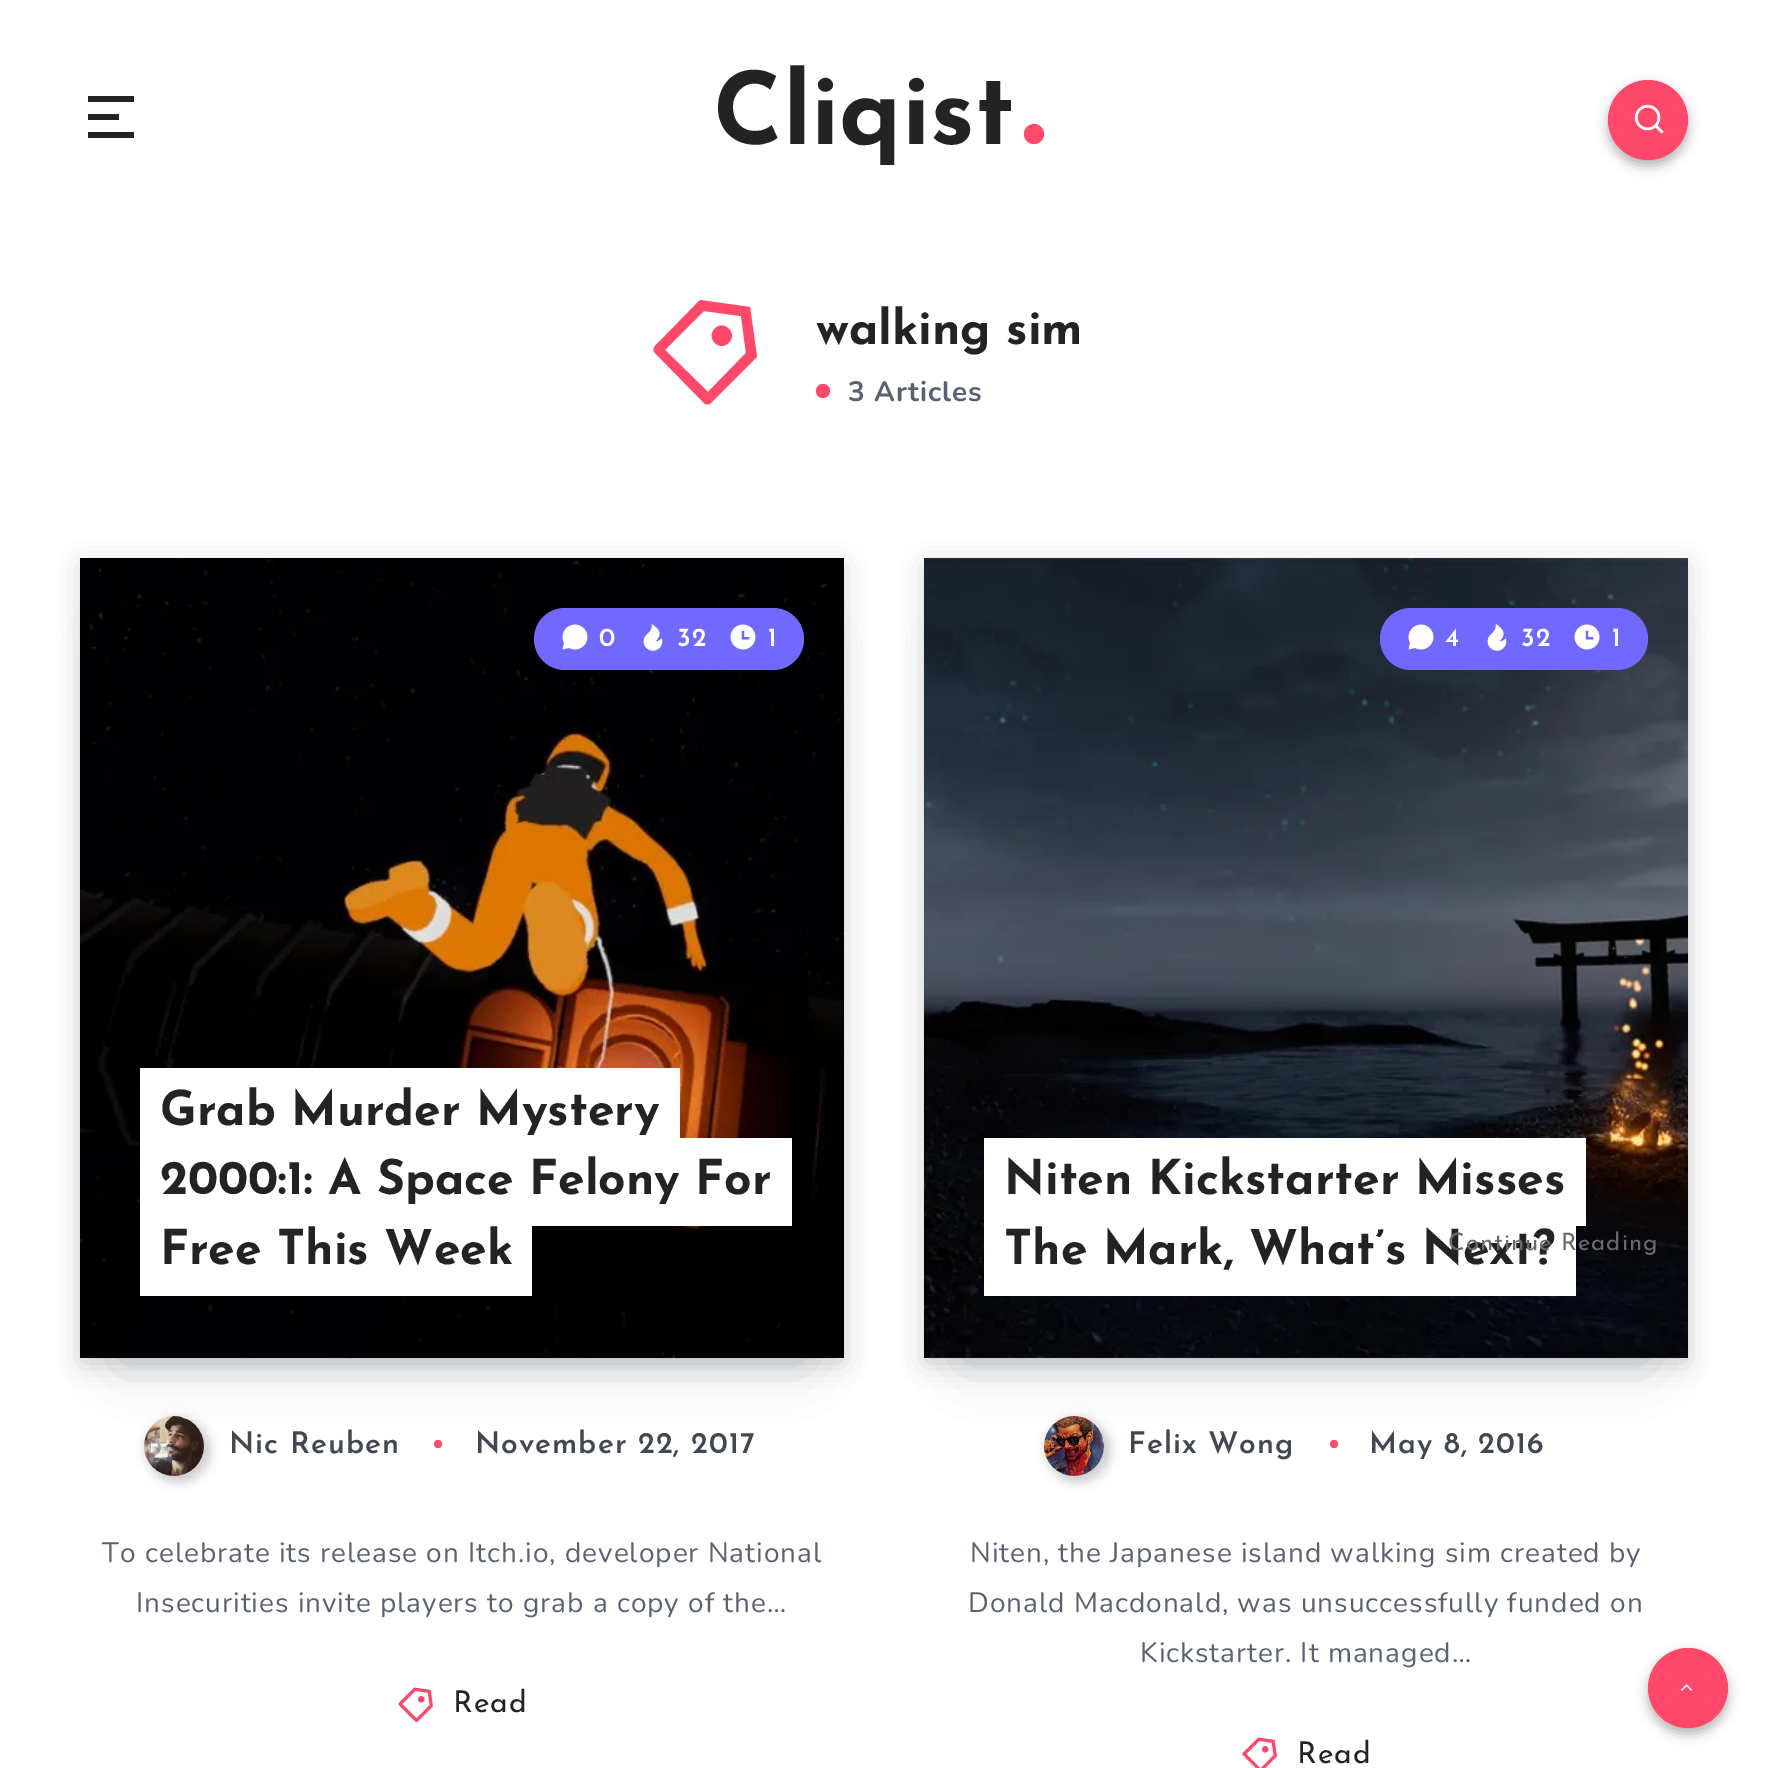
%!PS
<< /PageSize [1768 1768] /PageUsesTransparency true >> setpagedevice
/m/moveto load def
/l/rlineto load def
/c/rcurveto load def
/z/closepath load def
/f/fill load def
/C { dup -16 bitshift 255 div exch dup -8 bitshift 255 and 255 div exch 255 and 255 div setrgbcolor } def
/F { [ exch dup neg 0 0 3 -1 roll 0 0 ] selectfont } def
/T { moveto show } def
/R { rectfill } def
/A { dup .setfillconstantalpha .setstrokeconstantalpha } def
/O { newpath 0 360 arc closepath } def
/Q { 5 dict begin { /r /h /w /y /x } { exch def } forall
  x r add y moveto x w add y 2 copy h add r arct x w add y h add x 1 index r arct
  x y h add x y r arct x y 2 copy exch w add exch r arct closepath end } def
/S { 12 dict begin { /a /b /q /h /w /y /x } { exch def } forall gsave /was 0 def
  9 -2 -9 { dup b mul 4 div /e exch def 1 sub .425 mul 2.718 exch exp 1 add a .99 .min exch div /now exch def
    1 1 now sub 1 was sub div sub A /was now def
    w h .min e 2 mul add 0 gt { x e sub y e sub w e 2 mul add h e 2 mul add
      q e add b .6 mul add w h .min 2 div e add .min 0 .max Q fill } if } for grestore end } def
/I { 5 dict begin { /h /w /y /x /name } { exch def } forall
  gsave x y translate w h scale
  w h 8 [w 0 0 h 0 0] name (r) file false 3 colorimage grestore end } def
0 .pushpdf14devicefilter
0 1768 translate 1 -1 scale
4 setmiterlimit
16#FFFFFF C
0 0 1768 1768 R
16#242323 C
88 96 m 46 0 l 0 6 l -46 0 l z 88 114 m 31 0 l 0 6 l -31 0 l z 88 132 m 46 0 l 0 6 l -46 0 l z f
/JosefinSans-Bold 100 F
(Cliqist) 713 144 T
16#FF486A C
1034 134 10 O f
16#000000 C
1608 86 80 80 40 6 .3 S
16#FF486A C
1648 120 40 O f
(1.rgb) 1634 104 30 30 I
700 300 m 50 7 l 7 50 l -46 46 l -2 2 -5 2 -7 0 c -49 -50 l -2 -2 -2 -5 0 -7 c z 704 311 m -39 39 l 43 42 l 38 -39 l -5 -37 l z 715 343 m -10 -10 5 -24 14 -14 c 9 9 -5 23 -14 14 c z f
/JosefinSans-Bold 48 F
16#242323 C
(walking sim) 816 344 T
16#FF486A C
823 391 7 O f
/Nunito-Bold 28 F
16#596172 C
848 401 m 1 0 (3 Articles) ashow
16#000000 C
146 1418 64 64 32 5 .2 S
(7.rgb) 144 1416 60 60 I
16#FF486A C
438 1444 4 O f
16#070A19 C
120 642 684 720 0 27 .2 S
82 566 760 796 0 12 .2 S
(5.rgb) 80 558 764 800 I
16#7169FE C
534 608 270 62 31 Q f
(2.rgb) 562 624 26 26 I
/JosefinSans-SemiBold 26 F
16#FFFFFF C
599 646 m 1 0 (0) ashow
(3.rgb) 643 624 20 27 I
677 646 m 1 0 (32) ashow
(4.rgb) 730 624 26 26 I
768 646 m 1 0 (1) ashow
(6.rgb) 140 1068 652 228 I
/JosefinSans-Bold 48 F
16#242323 C
(Grab Murder Mystery) 160 1125 T
(2000:1: A Space Felony For) 160 1194 T
(Free This Week) 160 1264 T
/JosefinSans-SemiBold 30 F
16#424851 C
229 1453 m 1 0 (Nic Reuben) ashow
475 1453 m 1 0 (November 22, 2017) ashow
/Nunito-Regular 28 F
16#596172 C
102 1562 m 1 0 (To celebrate its release on Itch.io, developer National) ashow
136 1612 m 1 0 (Insecurities invite players to grab a copy of the…) ashow
(8.rgb) 398 1687 35 36 I
/JosefinSans-Regular 30 F
16#242323 C
453 1712 m 1 0 (Read) ashow
16#000000 C
1046 1418 64 64 32 5 .2 S
(11.rgb) 1044 1416 60 60 I
16#FF486A C
1334 1444 4 O f
16#070A19 C
964 642 684 720 0 27 .2 S
926 566 760 796 0 12 .2 S
(9.rgb) 924 558 764 800 I
16#7169FE C
1380 608 268 62 31 Q f
(2.rgb) 1408 624 26 26 I
/JosefinSans-SemiBold 26 F
16#FFFFFF C
1445 646 m 1 0 (4) ashow
(3.rgb) 1487 624 20 27 I
1521 646 m 1 0 (32) ashow
(4.rgb) 1574 624 26 26 I
1612 646 m 1 0 (1) ashow
(10.rgb) 984 1138 602 158 I
/JosefinSans-Bold 48 F
16#242323 C
(Niten Kickstarter Misses) 1004 1194 T
(The Mark, What’s Next?) 1004 1264 T
/JosefinSans-Regular 24 F
16#69696B C
1448 1250 m 1 0 (Continue Reading) ashow
/JosefinSans-SemiBold 30 F
16#424851 C
1128 1453 m 1 0 (Felix Wong) ashow
1369 1453 m 1 0 (May 8, 2016) ashow
/Nunito-Regular 28 F
16#596172 C
970 1562 m 1 0 (Niten, the Japanese island walking sim created by) ashow
968 1612 m 1 0 (Donald Macdonald, was unsuccessfully funded on) ashow
1140 1662 m 1 0 (Kickstarter. It managed…) ashow
(12.rgb) 1242 1737 35 31 I
/JosefinSans-Regular 30 F
16#242323 C
1297 1763 m 1 0 (Read) ashow
16#000000 C
1648 1654 80 80 40 6 .3 S
16#FF486A C
1688 1688 40 O f
(13.rgb) 1681 1684 12 7 I
.poppdf14devicefilter showpage
